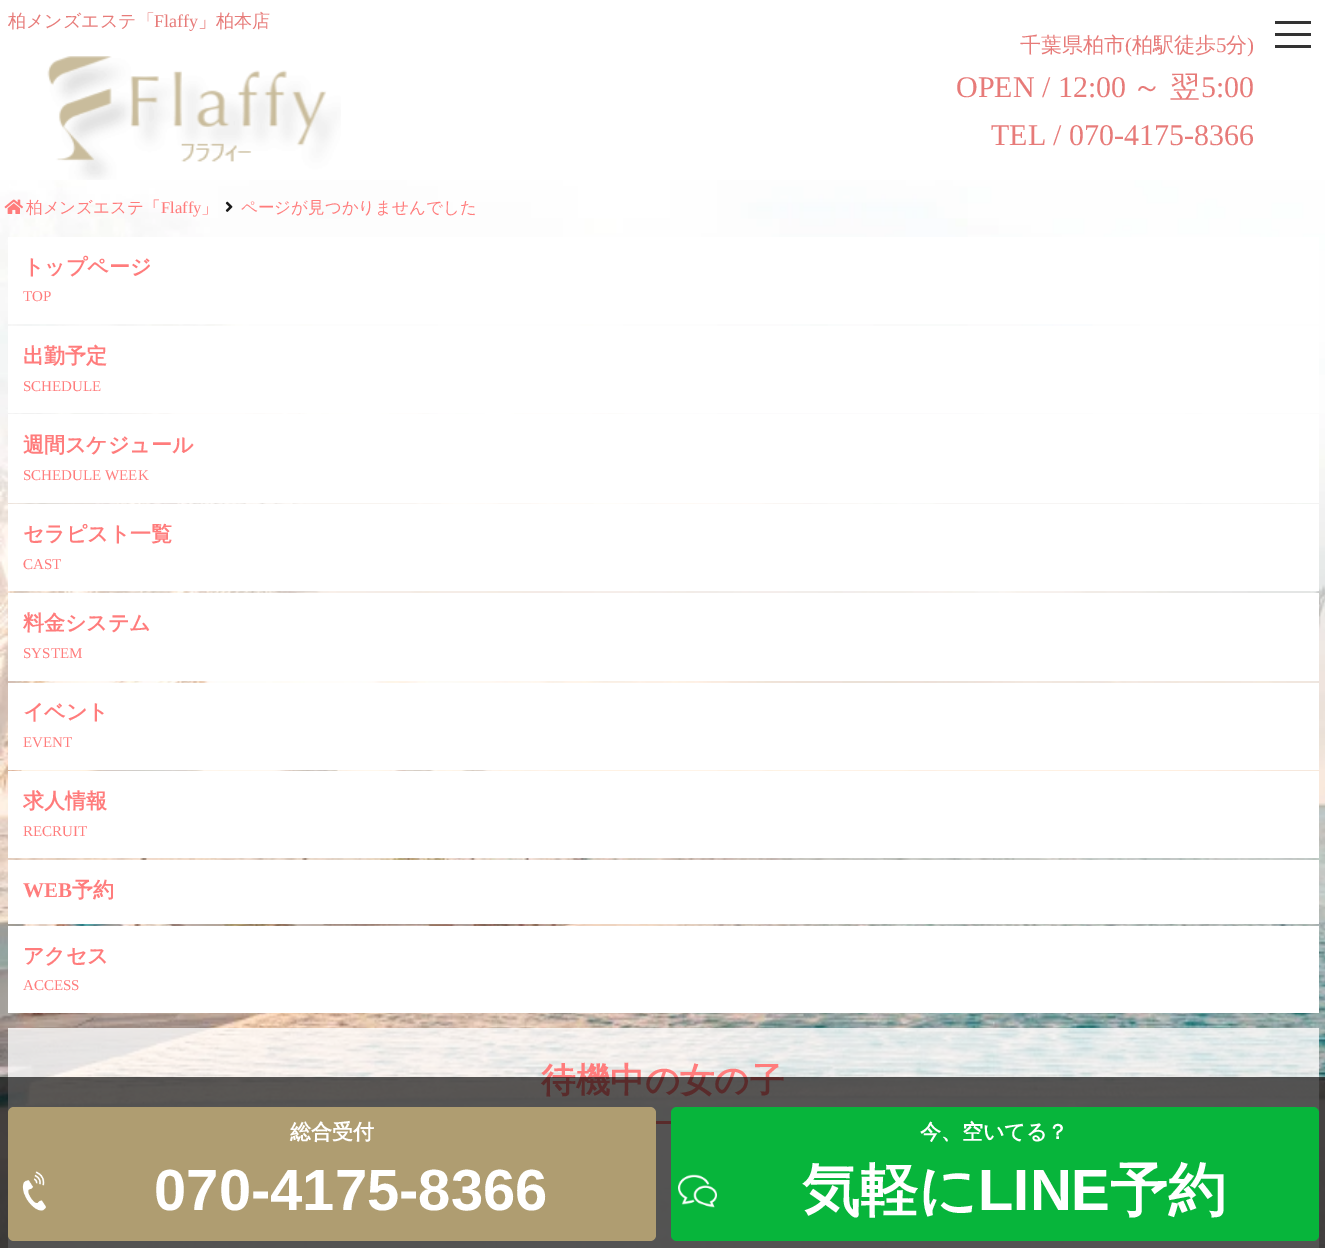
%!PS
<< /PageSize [1325 1248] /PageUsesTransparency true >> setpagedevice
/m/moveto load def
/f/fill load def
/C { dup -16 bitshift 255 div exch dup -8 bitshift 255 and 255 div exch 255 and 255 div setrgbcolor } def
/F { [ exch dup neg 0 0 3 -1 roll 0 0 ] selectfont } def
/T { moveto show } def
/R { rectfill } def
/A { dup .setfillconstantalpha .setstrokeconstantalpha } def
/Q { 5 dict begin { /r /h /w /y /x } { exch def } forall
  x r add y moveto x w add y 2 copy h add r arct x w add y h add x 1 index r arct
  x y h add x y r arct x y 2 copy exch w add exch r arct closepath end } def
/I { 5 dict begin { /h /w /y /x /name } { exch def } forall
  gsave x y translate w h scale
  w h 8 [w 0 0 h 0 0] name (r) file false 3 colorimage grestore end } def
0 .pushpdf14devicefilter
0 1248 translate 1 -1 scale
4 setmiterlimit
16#FFFFFF C
0 0 1325 1248 R
(1.rgb) 0 180 1325 1068 I
/WenQuanYiZenHei-Medium 18 F
16#E77B79 C
(柏メンズエステ「) 8 27 T
/LiberationSerif-Regular 18 F
(Flaffy) 154 27 T
/WenQuanYiZenHei-Medium 18 F
(」柏本店) 198 27 T
(2.rgb) 47 56 294 124 I
/WenQuanYiZenHei-Medium 21 F
(千葉県柏市) 1020 52 T
/LiberationSerif-Regular 21 F
(\() 1125 52 T
/WenQuanYiZenHei-Medium 21 F
(柏駅徒歩) 1132 52 T
/LiberationSerif-Regular 21 F
(5) 1216 52 T
/WenQuanYiZenHei-Medium 21 F
(分) 1226 52 T
/LiberationSerif-Regular 21 F
(\)) 1247 52 T
/LiberationSerif-Regular 30 F
(OPEN / 12:00) 956 97 T
/WenQuanYiZenHei-Medium 30 F
1132 97 m -1 0 32 (～ 翌) widthshow
/LiberationSerif-Regular 30 F
(5:00) 1201 97 T
(TEL / 070-4175-8366) 991 145 T
16#333333 C
1275 33 36 3 R
1275 21 36 3 R
1275 45 36 3 R
(3.rgb) 4 199 19 15 I
/WenQuanYiZenHei-Medium 16.5 F
16#FF7C7C C
(柏メンズエステ「) 26 213 T
/LiberationSerif-Regular 16.5 F
(Flaffy) 161 213 T
/WenQuanYiZenHei-Medium 16.5 F
(」) 201 213 T
(4.rgb) 225 201 8 11 I
(ページが見つかりませんでした) 241 213 T
16#FFFFFF C
8 237 1311 87 R
/WenQuanYiZenHei-Bold 21 F
16#FF7C7C C
(トップページ) 23 274 T
/LiberationSerif-Regular 15 F
(TOP) 23 301 T
16#FFFFFF C
8 326 1311 87 R
/WenQuanYiZenHei-Bold 21 F
16#FF7C7C C
(出勤予定) 23 363 T
/LiberationSerif-Regular 15 F
(SCHEDULE) 23 391 T
16#FFFFFF C
8 414 1311 89 R
/WenQuanYiZenHei-Bold 21 F
16#FF7C7C C
(週間スケジュール) 23 452 T
/LiberationSerif-Regular 15 F
(SCHEDULE WEEK) 23 480 T
16#FFFFFF C
8 504 1311 87 R
/WenQuanYiZenHei-Bold 21 F
16#FF7C7C C
(セラピスト一覧) 23 541 T
/LiberationSerif-Regular 15 F
(CAST) 23 569 T
16#FFFFFF C
8 593 1311 88 R
/WenQuanYiZenHei-Bold 21 F
16#FF7C7C C
(料金システム) 23 630 T
/LiberationSerif-Regular 15 F
(SYSTEM) 23 658 T
16#FFFFFF C
8 683 1311 87 R
/WenQuanYiZenHei-Bold 21 F
16#FF7C7C C
(イベント) 23 719 T
/LiberationSerif-Regular 15 F
(EVENT) 23 747 T
16#FFFFFF C
8 771 1311 87 R
/WenQuanYiZenHei-Bold 21 F
16#FF7C7C C
(求人情報) 23 808 T
/LiberationSerif-Regular 15 F
(RECRUIT) 23 836 T
16#FFFFFF C
8 860 1311 64 R
/LiberationSerif-Bold 21 F
16#FF7C7C C
(WEB) 23 897 T
/WenQuanYiZenHei-Bold 21 F
(予約) 72 897 T
16#FFFFFF C
8 926 1311 87 R
16#FF7C7C C
(アクセス) 23 963 T
/LiberationSerif-Regular 15 F
(ACCESS) 23 990 T
0.78 A
16#FFFFFF C
8 1028 1311 220 R
1 A
16#FF7C7C C
656 1121 15 3 R
/WenQuanYiZenHei-Bold 34.5 F
(待機中の女の子) 541 1092 T
0.65 A
16#000000 C
0 1077 1325 171 R
1 A
16#AF9D71 C
8 1107 648 134 6 Q f
/WenQuanYiZenHei-Bold 21 F
16#FFFFFF C
(総合受付) 290 1139 T
(5.rgb) 22 1171 24 40 I
/LiberationSans-Bold 58 F
(070-4175-8366) 154 1210 T
16#07B53B C
671 1107 648 134 6 Q f
/WenQuanYiZenHei-Bold 21 F
16#FFFFFF C
(今、空いてる？) 920 1139 T
(6.rgb) 678 1174 39 34 I
/WenQuanYiZenHei-Bold 58 F
(気軽に) 802 1210 T
/LiberationSans-Bold 58 F
(LINE) 978 1210 T
/WenQuanYiZenHei-Bold 58 F
(予約) 1110 1210 T
.poppdf14devicefilter showpage
